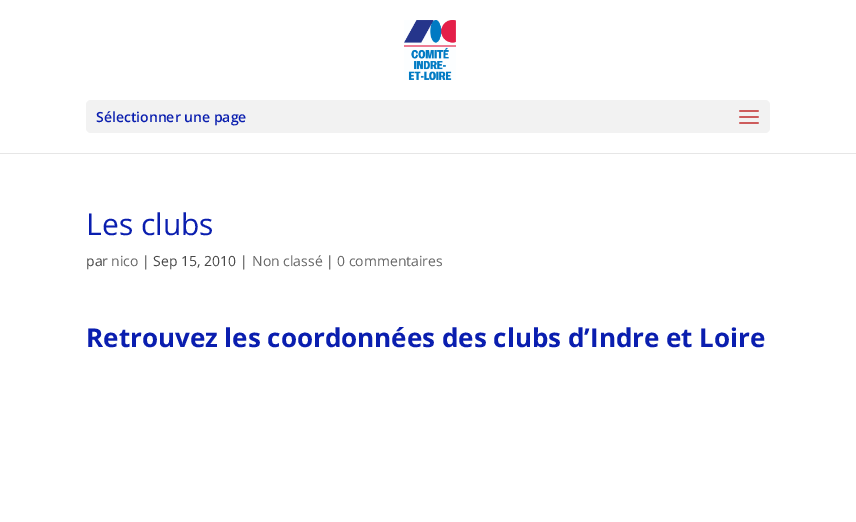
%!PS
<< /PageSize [856 522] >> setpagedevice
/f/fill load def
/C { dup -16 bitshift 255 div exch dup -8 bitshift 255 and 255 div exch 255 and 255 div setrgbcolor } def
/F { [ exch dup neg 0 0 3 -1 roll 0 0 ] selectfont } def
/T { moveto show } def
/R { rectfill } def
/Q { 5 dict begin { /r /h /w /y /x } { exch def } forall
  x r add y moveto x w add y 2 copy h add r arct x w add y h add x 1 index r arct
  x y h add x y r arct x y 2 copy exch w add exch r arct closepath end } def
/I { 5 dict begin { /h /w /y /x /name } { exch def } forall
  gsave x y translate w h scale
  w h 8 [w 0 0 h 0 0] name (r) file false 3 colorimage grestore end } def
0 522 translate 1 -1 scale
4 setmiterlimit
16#FFFFFF C
0 0 856 522 R
16#E6E6E6 C
0 153 856 1 R
(1.rgb) 404 20 52 60 I
16#F2F2F2 C
86 100 684 33 5 Q f
/OpenSans-SemiBold 14 F
16#0A1EAF C
(Sélectionner une page) 96 122 T
(2.rgb) 739 110 20 14 I
/OpenSans-Regular 30 F
(Les clubs) 86 235 T
/OpenSans-Regular 14 F
16#474747 C
(par) 86 266 T
16#666666 C
(nico) 111 266 T
16#474747 C
(| Sep 15, 2010 |) 142 266 T
16#666666 C
(Non classé) 252 266 T
16#474747 C
(|) 326 266 T
16#666666 C
(0 commentaires) 337 266 T
/OpenSans-Bold 26 F
16#0A1EAF C
(Retrouvez les coordonnées des clubs d’Indre et Loire) 86 347 T
showpage
